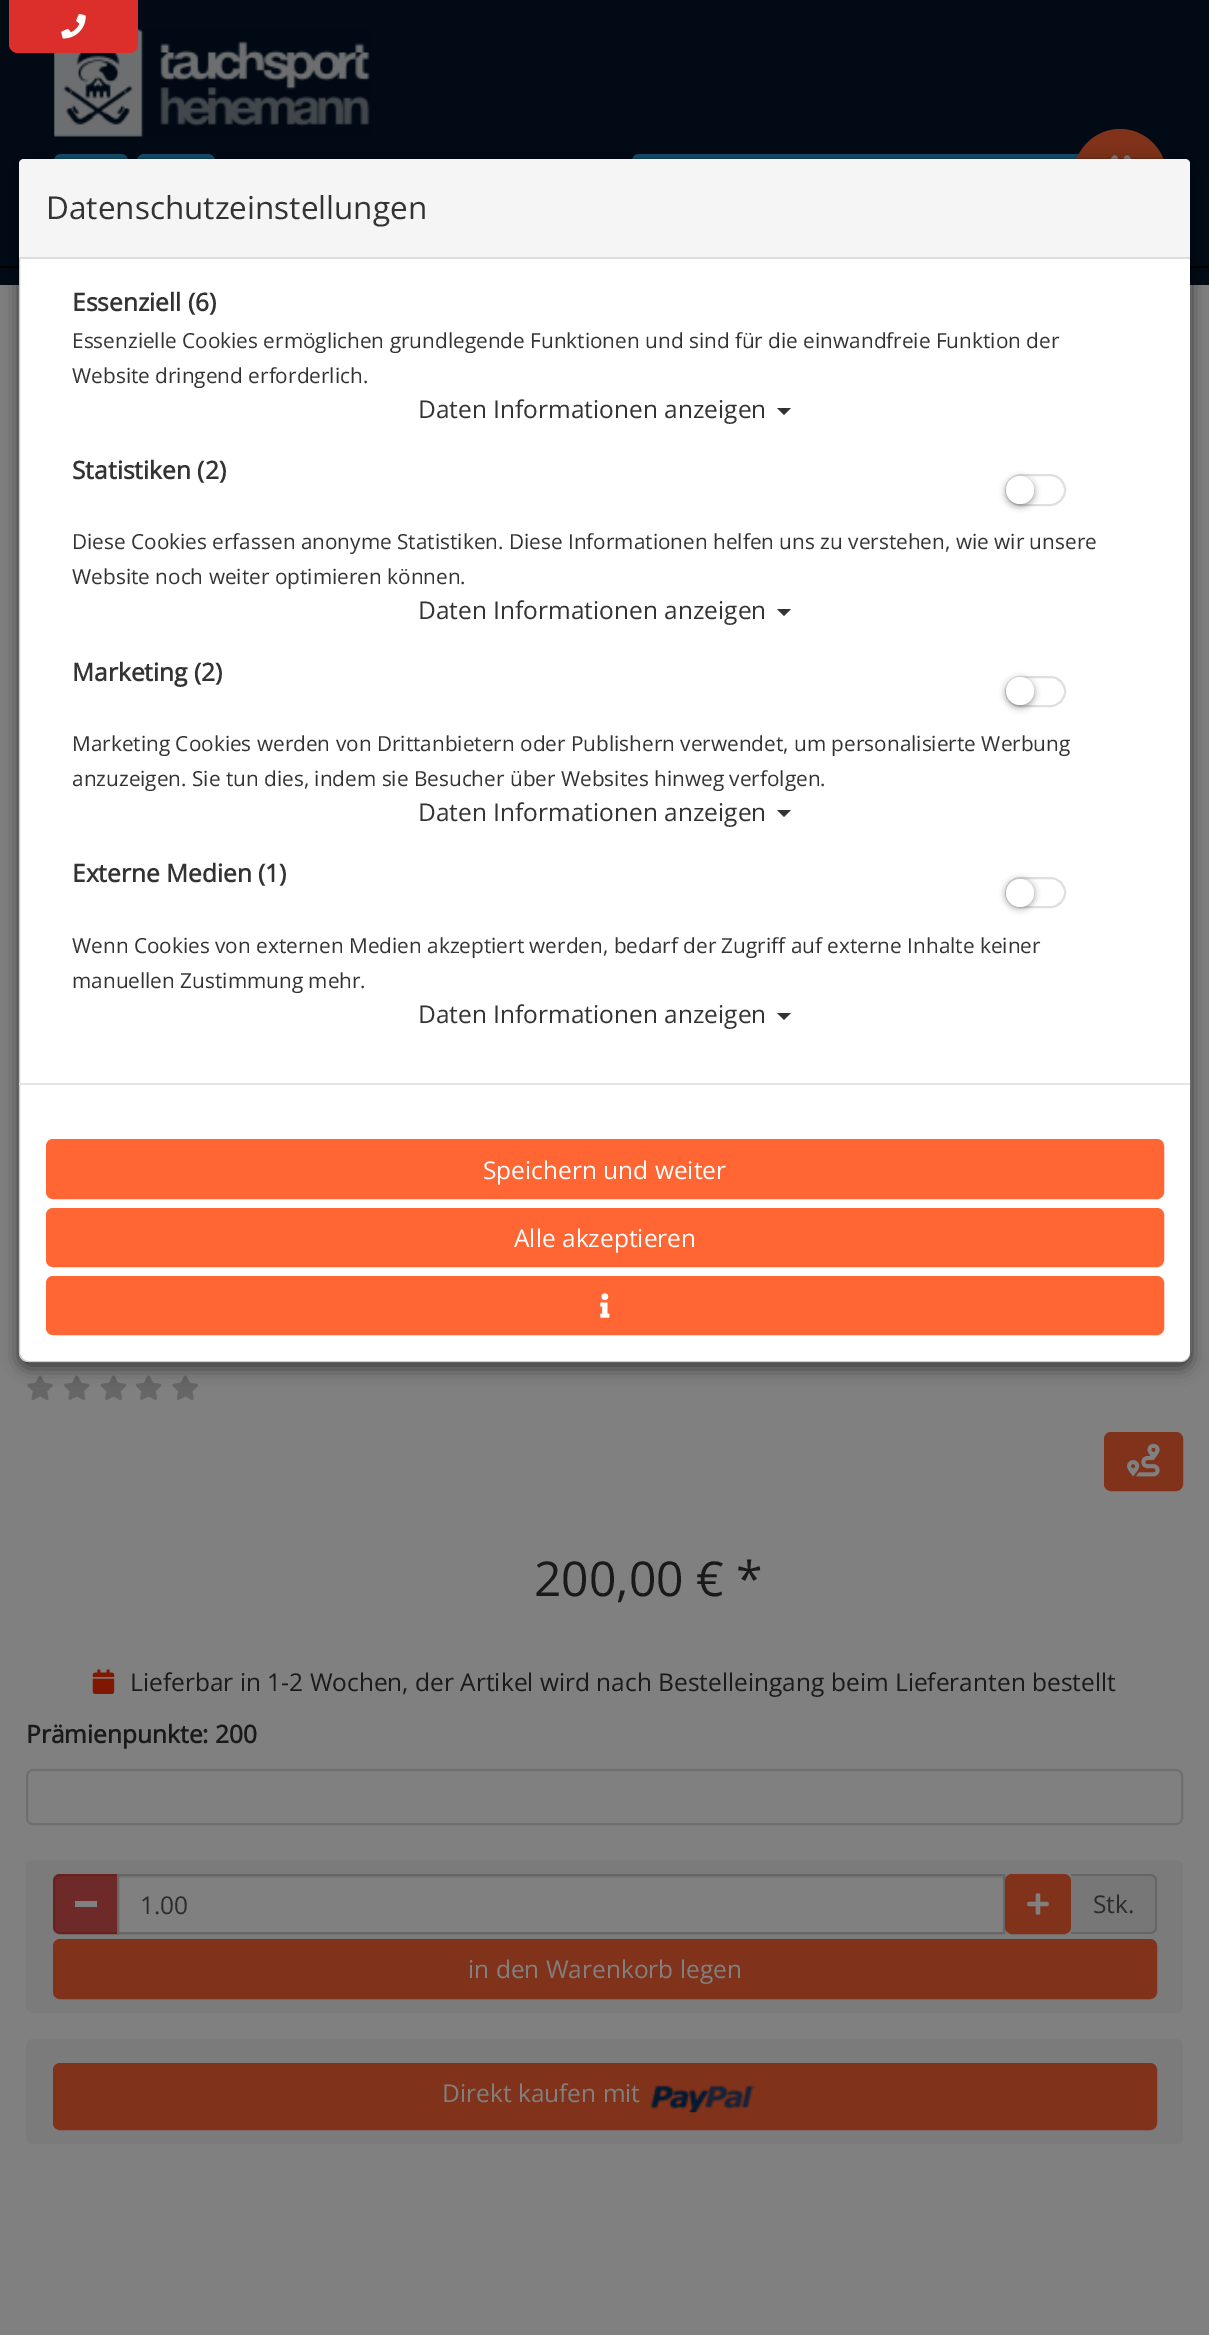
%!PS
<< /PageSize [1209 2335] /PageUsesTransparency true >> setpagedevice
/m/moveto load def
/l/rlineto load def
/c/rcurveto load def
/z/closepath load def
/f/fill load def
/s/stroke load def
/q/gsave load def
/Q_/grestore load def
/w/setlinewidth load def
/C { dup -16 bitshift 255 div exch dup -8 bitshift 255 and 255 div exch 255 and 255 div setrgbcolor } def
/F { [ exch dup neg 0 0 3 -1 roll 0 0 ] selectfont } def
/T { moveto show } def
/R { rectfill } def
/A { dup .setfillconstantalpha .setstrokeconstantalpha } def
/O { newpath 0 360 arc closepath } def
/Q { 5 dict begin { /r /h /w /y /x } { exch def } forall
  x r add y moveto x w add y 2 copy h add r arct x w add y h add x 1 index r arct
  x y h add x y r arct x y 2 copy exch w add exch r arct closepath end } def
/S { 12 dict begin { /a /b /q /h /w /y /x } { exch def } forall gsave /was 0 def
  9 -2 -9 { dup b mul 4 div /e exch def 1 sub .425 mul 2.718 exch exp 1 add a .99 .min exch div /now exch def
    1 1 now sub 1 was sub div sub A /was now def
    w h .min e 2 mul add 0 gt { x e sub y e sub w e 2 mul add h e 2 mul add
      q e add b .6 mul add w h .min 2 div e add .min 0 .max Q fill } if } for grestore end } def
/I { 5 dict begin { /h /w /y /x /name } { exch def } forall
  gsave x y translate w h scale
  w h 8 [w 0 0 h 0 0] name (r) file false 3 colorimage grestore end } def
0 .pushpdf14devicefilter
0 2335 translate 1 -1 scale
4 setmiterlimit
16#010A15 C
0 0 1209 2335 R
(2.rgb) 54 28 316 109 I
16#DC2F2B C
9 0 m 129 0 l 0 44 l 0 5 -4 9 -9 9 c -111 0 l -5 0 -9 -4 -9 -9 c z f
(1.rgb) 61 14 25 25 I
16#144F6A C
55 155 72 58 6 Q q f Q_
2 w
s
138 155 76 58 6 Q q f Q_
s
633 155 521 58 6 Q q f Q_
s
16#80331A C
1120 129 m -26 0 -47 22 -47 48 c 0 26 21 47 47 47 c 26 0 47 -21 47 -47 c 0 -26 -21 -48 -47 -48 c z f
(3.rgb) 1110 155 22 4 I
16#000000 C
0 266 1209 2 R
16#808080 C
0 285 1209 2050 R
(5.rgb) 27 1375 26 25 I
(6.rgb) 64 1375 26 25 I
(7.rgb) 100 1375 27 25 I
(7.rgb) 135 1375 27 25 I
(8.rgb) 172 1375 26 25 I
q
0 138 m 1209 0 l 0 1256 l -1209 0 l z 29 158 m 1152 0 l 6 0 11 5 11 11 c 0 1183 l 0 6 -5 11 -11 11 c -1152 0 l -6 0 -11 -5 -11 -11 c 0 -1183 l 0 -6 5 -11 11 -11 c z eoclip newpath
16#000000 C
18 163 1174 1206 11 8 .5 S
Q_
16#FFFFFF C
19 159 1171 1203 9 Q f
0.2 A
16#000000 C
19 159 1172 1203 10 Q s
1 A
16#F5F5F5 C
24 159 m 1161 0 l 3 0 5 2 5 5 c 0 95 l -1171 0 l 0 -95 l 0 -3 2 -5 5 -5 c z f
16#DDDDDD C
19 257 1171 2 R
/OpenSans-Regular 31.5 F
16#333333 C
(Datenschutzeinstellungen) 46 219 T
/OpenSans-Bold 24.5 F
(Essenziell \(6\)) 72 311 T
/OpenSans-Regular 20.8 F
(Essenzielle Cookies ermöglichen grundlegende Funktionen und sind für die einwandfreie Funktion der) 72 348 T
(Website dringend erforderlich.) 72 383 T
/OpenSans-Regular 24.5 F
(Daten Informationen anzeigen) 418 418 T
777 408 m 14 0 l -7 7 l z f
/OpenSans-Bold 24.5 F
(Statistiken \(2\)) 72 479 T
16#DFDFDF C
1006 475 59 30 15 Q s
16#000000 C
1006 478 28 28 14 3.5 .4 S
16#FFFFFF C
1020 490 14 O f
/OpenSans-Regular 20.8 F
16#333333 C
(Diese Cookies erfassen anonyme Statistiken. Diese Informationen helfen uns zu verstehen, wie wir unsere) 72 549 T
(Website noch weiter optimieren können.) 72 584 T
/OpenSans-Regular 24.5 F
(Daten Informationen anzeigen) 418 619 T
777 609 m 14 0 l -7 7 l z f
/OpenSans-Bold 24.5 F
(Marketing \(2\)) 72 681 T
16#DFDFDF C
1006 677 59 29 14.5 Q s
16#000000 C
1006 679 28 28 14 3.5 .4 S
16#FFFFFF C
1020 691 14 O f
/OpenSans-Regular 20.8 F
16#333333 C
(Marketing Cookies werden von Drittanbietern oder Publishern verwendet, um personalisierte Werbung) 72 751 T
(anzuzeigen. Sie tun dies, indem sie Besucher über Websites hinweg verfolgen.) 72 786 T
/OpenSans-Regular 24.5 F
(Daten Informationen anzeigen) 418 821 T
777 810 m 14 0 l -7 7 l z f
/OpenSans-Bold 24.5 F
(Externe Medien \(1\)) 72 882 T
16#DFDFDF C
1006 878 59 29 14.5 Q s
16#000000 C
1006 880 28 28 14 3.5 .4 S
16#FFFFFF C
1020 893 14 O f
/OpenSans-Regular 20.8 F
16#333333 C
(Wenn Cookies von externen Medien akzeptiert werden, bedarf der Zugriff auf externe Inhalte keiner) 72 953 T
(manuellen Zustimmung mehr.) 72 988 T
/OpenSans-Regular 24.5 F
(Daten Informationen anzeigen) 418 1023 T
777 1013 m 14 0 l -7 7 l z f
16#E5E5E5 C
19 1083 1171 2 R
16#FF6633 C
47 1140 1116 58 6 Q q f Q_
s
16#FFFFFF C
(Speichern und weiter) 483 1179 T
16#FF6633 C
47 1209 1116 57 6 Q q f Q_
s
16#FFFFFF C
(Alle akzeptieren) 514 1247 T
16#FF6633 C
47 1277 1116 57 6 Q q f Q_
s
(4.rgb) 600 1293 10 25 I
16#80331A C
1105 1433 77 57 6 Q q f Q_
s
(9.rgb) 1127 1443 33 34 I
/OpenSans-Regular 48 F
16#1A1A1A C
(200,00 € *) 534 1596 T
(10.rgb) 92 1669 23 25 I
/OpenSans-Regular 24.5 F
(Lieferbar in 1-2 Wochen, der Artikel wird nach Bestelleingang beim Lieferanten bestellt) 130 1691 T
/OpenSans-Bold 24.5 F
(Prämienpunkte: 200) 26 1743 T
16#6F6F6F C
27 1770 1155 54 6 Q s
16#7B7B7B C
26 1860 1157 153 7 Q f
16#6D2A28 C
60 1875 m 58 0 l 0 58 l -58 0 l -3.5 0 -6 -2.5 -6 -6 c 0 -46 l 0 -3.5 2.5 -6 6 -6 c z q f Q_
16#6A201D C
s
16#808080 C
75 1901 22 6 R
119 1878 884 54 R
16#767676 C
119 1876 884 2 R
16#666666 C
118 1875 886 58 rectstroke
/OpenSans-Regular 24.5 F
16#2B2B2B C
(1.00) 140 1914 T
16#80331A C
1006 1875 64 58 6 Q q f Q_
s
(11.rgb) 1027 1893 22 22 I
16#777777 C
1071 1874 m 79 0 l 4 0 7 3 7 7 c 0 46 l 0 4 -3 7 -7 7 c -79 0 l z f
16#666666 C
1071 1874 m 79 0 l 4 0 7 3 7 7 c 0 46 l 0 4 -3 7 -7 7 c -79 0 l z 1071 1876 m 79 0 l 3 0 5 2 5 5 c 0 46 l 0 3 -2 5 -5 5 c -79 0 l z eofill
16#2B2B2B C
(Stk.) 1093 1913 T
16#80331A C
54 1940 1102 58 6 Q q f Q_
s
16#808080 C
(in den Warenkorb legen) 468 1978 T
16#7B7B7B C
26 2039 1157 105 7 Q f
16#80331A C
54 2064 1102 65 6 Q q f Q_
s
16#808080 C
(Direkt kaufen mit) 442 2102 T
(12.rgb) 650 2085 107 28 I
.poppdf14devicefilter showpage
